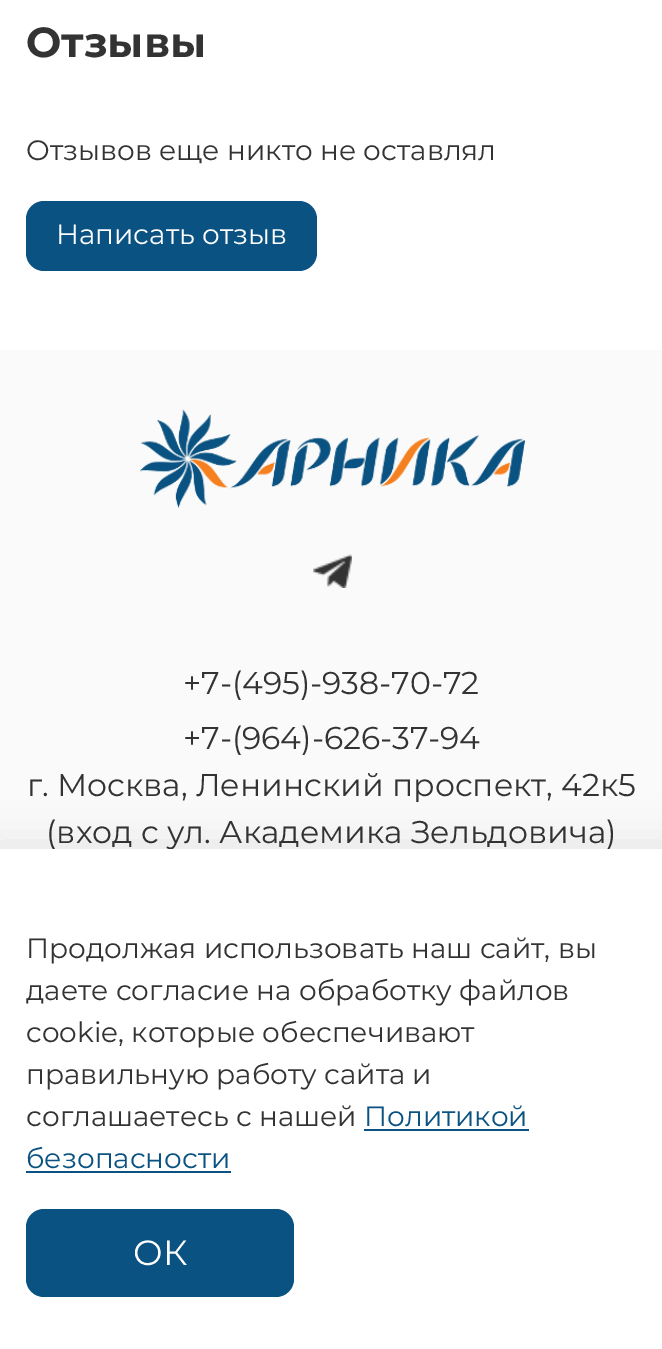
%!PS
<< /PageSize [662 1349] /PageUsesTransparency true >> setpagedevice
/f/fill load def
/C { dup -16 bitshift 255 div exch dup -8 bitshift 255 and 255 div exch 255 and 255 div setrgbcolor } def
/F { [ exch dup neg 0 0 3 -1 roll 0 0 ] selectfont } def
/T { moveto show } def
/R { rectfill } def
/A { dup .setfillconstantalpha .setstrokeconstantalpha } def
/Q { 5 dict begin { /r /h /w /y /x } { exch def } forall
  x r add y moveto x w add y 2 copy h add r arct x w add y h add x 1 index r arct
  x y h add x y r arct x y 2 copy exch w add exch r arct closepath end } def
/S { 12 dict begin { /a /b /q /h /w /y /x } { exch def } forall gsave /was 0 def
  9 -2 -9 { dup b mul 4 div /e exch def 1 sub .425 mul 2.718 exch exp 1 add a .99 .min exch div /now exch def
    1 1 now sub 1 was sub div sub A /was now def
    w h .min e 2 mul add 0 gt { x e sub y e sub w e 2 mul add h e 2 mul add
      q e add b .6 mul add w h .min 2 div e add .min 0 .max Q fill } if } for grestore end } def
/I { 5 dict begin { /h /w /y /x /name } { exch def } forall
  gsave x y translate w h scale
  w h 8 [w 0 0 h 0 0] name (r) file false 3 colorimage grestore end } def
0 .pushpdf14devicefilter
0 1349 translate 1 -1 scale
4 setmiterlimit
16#FFFFFF C
0 0 662 1349 R
/Montserrat-Bold 42 F
16#333333 C
(Отзывы) 26 57 T
/Montserrat-Regular 28 F
(Отзывов еще никто не оставлял) 26 160 T
16#0A5281 C
26 201 291 70 18 Q f
16#FFFFFF C
(Написать отзыв) 56 244 T
16#FAFAFA C
0 350 662 499 R
(1.rgb) 140 409 385 99 I
(2.rgb) 313 554 39 34 I
/Montserrat-Regular 31.5 F
16#333333 C
(+7-\(495\)-938-70-72) 183 694 T
(+7-\(964\)-626-37-94) 183 749 T
(г. Москва, Ленинский проспект, 42к5) 27 796 T
(\(вход с ул. Академика Зельдовича\)) 46 843 T
16#000000 C
-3 844 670 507 0 20 .09 S
16#FFFFFF C
0 849 662 500 R
/Montserrat-Regular 28 F
16#333333 C
(Продолжая использовать наш сайт, вы) 26 958 T
(даете согласие на обработку файлов) 26 1000 T
(cookie, которые обеспечивают) 26 1042 T
(правильную работу сайта и) 26 1084 T
(соглашаетесь с нашей) 26 1126 T
16#0A5281 C
(Политикой) 364 1126 T
364 1129 165 2 R
(безопасности) 26 1168 T
26 1171 205 2 R
26 1209 268 88 18 Q f
/Montserrat-Regular 35 F
16#FFFFFF C
(ОК) 133 1265 T
.poppdf14devicefilter showpage
